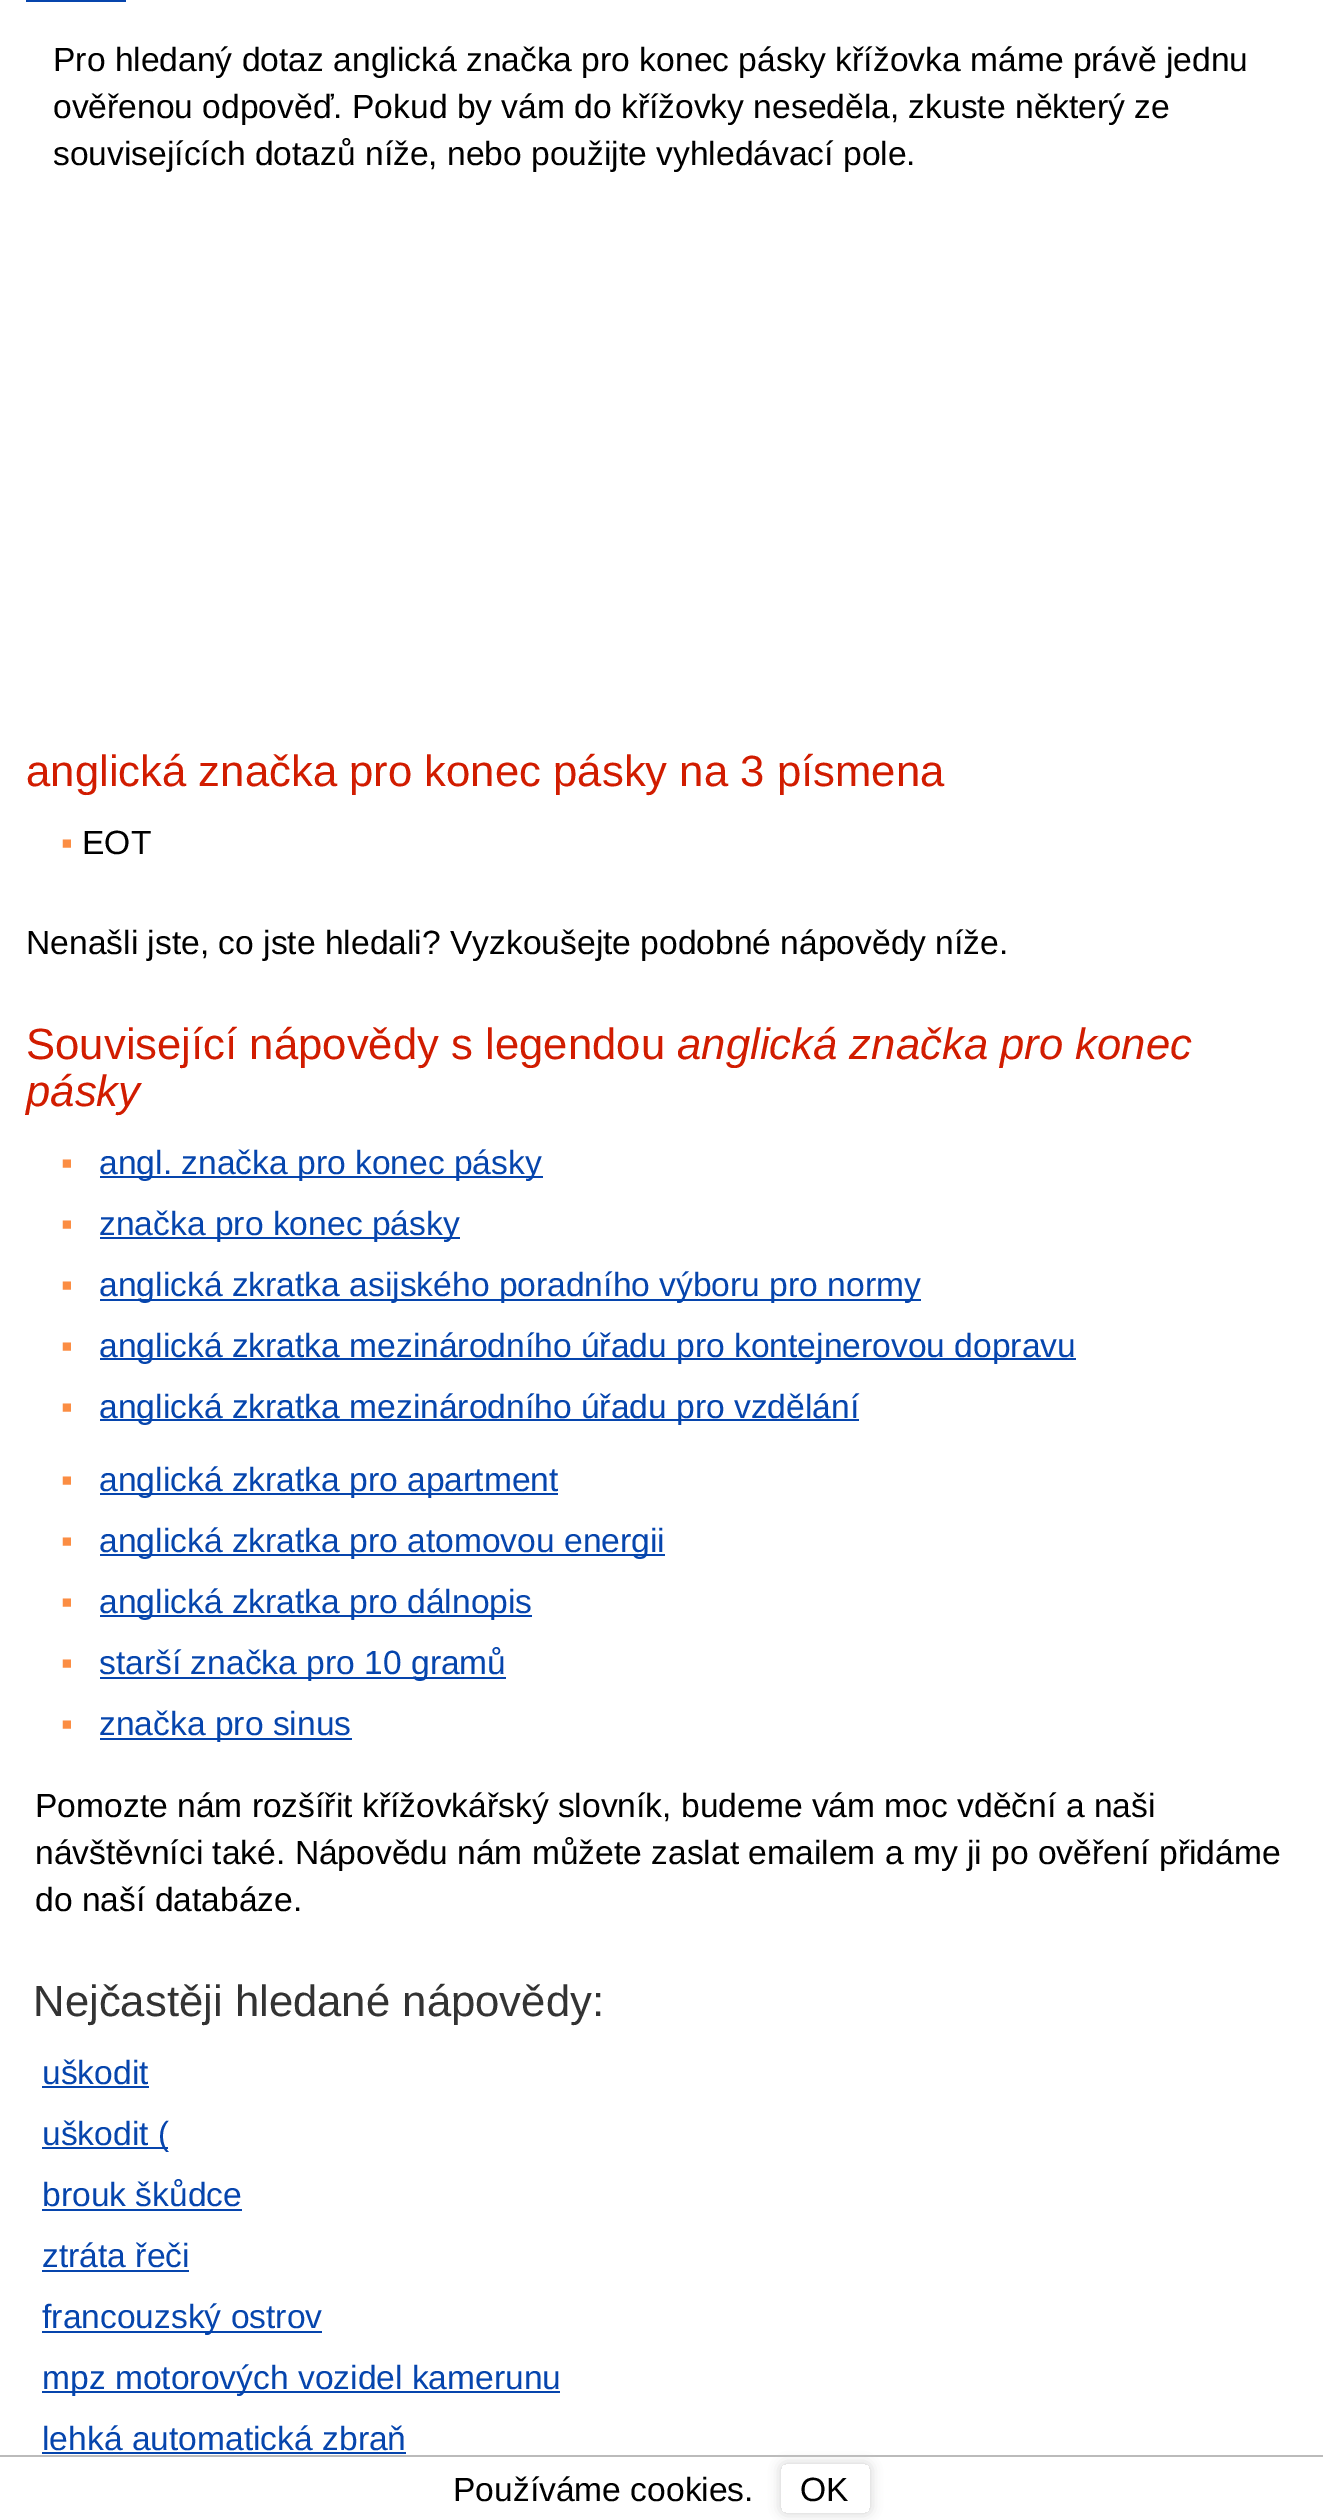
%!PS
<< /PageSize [1323 2520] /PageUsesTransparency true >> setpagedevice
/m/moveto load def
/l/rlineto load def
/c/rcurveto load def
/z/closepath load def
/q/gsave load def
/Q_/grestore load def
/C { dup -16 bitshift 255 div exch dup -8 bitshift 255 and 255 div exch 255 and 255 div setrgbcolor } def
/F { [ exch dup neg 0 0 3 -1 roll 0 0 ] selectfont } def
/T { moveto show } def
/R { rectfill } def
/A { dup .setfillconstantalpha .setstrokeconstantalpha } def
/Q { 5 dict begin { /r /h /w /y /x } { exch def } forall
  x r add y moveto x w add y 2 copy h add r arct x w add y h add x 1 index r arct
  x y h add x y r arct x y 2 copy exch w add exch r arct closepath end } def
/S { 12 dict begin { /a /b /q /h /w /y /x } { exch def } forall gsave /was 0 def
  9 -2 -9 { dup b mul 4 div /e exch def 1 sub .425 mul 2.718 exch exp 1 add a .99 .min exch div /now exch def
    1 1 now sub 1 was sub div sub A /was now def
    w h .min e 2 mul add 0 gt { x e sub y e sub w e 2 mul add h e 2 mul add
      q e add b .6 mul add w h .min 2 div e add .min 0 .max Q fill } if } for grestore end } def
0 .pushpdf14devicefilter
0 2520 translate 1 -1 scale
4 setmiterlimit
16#FFFFFF C
0 0 1323 2520 R
16#0645AD C
26 0 100 2 R
/LiberationSans-Regular 33.6 F
16#000000 C
(Pro hledaný dotaz anglická značka pro konec pásky křížovka máme právě jednu) 53 71 T
(ověřenou odpověď. Pokud by vám do křížovky neseděla, zkuste některý ze) 53 118 T
(souvisejících dotazů níže, nebo použijte vyhledávací pole.) 53 165 T
/LiberationSans-Regular 43.7 F
16#D11C00 C
(anglická značka pro konec pásky na 3 písmena) 26 786 T
/LiberationSans-Regular 33.6 F
16#FB8D43 C
(▪) 61 854 T
16#000000 C
(EOT) 82 854 T
(Nenašli jste, co jste hledali? Vyzkoušejte podobné nápovědy níže.) 26 954 T
/LiberationSans-Regular 43.7 F
16#D11C00 C
(Související nápovědy s legendou) 26 1059 T
/LiberationSans-Italic 43.7 F
(anglická značka pro konec) 677 1059 T
(pásky) 26 1106 T
/LiberationSans-Regular 33.6 F
16#FB8D43 C
(▪) 61 1174 T
16#0645AD C
100 1176 443 2 R
(angl. značka pro konec pásky) 99 1174 T
16#FB8D43 C
(▪) 61 1235 T
16#0645AD C
100 1237 360 2 R
(značka pro konec pásky) 99 1235 T
16#FB8D43 C
(▪) 61 1296 T
16#0645AD C
100 1299 821 2 R
(anglická zkratka asijského poradního výboru pro normy) 99 1296 T
16#FB8D43 C
(▪) 61 1357 T
16#0645AD C
100 1358 976 2 R
(anglická zkratka mezinárodního úřadu pro kontejnerovou dopravu) 99 1357 T
16#FB8D43 C
(▪) 61 1418 T
16#0645AD C
100 1419 759 2 R
(anglická zkratka mezinárodního úřadu pro vzdělání) 99 1418 T
16#FB8D43 C
(▪) 61 1491 T
16#0645AD C
100 1493 458 2 R
(anglická zkratka pro apartment) 99 1491 T
16#FB8D43 C
(▪) 61 1552 T
16#0645AD C
100 1554 565 2 R
(anglická zkratka pro atomovou energii) 99 1552 T
16#FB8D43 C
(▪) 61 1613 T
16#0645AD C
100 1615 432 2 R
(anglická zkratka pro dálnopis) 99 1613 T
16#FB8D43 C
(▪) 61 1674 T
16#0645AD C
100 1677 406 2 R
(starší značka pro 10 gramů) 99 1674 T
16#FB8D43 C
(▪) 61 1735 T
16#0645AD C
100 1738 252 2 R
(značka pro sinus) 99 1735 T
16#000000 C
(Pomozte nám rozšířit křížovkářský slovník, budeme vám moc vděční a naši) 35 1817 T
(návštěvníci také. Nápovědu nám můžete zaslat emailem a my ji po ověření přidáme) 35 1864 T
(do naší databáze.) 35 1911 T
/LiberationSans-Regular 43.7 F
16#333333 C
(Nejčastěji hledané nápovědy:) 33 2016 T
/LiberationSans-Regular 33.6 F
16#0645AD C
(uškodit) 42 2084 T
42 2086 107 2 R
42 2147 126 2 R
(uškodit \() 42 2145 T
(brouk škůdce) 42 2206 T
42 2209 200 2 R
(ztráta řeči) 42 2267 T
42 2270 147 2 R
42 2331 280 2 R
(francouzský ostrov) 42 2328 T
42 2391 518 2 R
(mpz motorových vozidel kamerunu) 42 2389 T
(lehká automatická zbraň) 42 2450 T
42 2452 364 2 R
16#BBBBBB C
0 2455 1323 2 R
16#000000 C
(Používáme cookies.) 453 2501 T
q
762 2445 m 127 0 l 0 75 l -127 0 l z 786 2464 m 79 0 l 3 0 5 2 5 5 c 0 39 l 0 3 -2 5 -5 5 c -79 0 l -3 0 -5 -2 -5 -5 c 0 -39 l 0 -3 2 -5 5 -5 c z eoclip newpath
16#CCCCCC C
781 2464 89 49 5 6 1 S
Q_
(OK) 800 2501 T
.poppdf14devicefilter showpage
